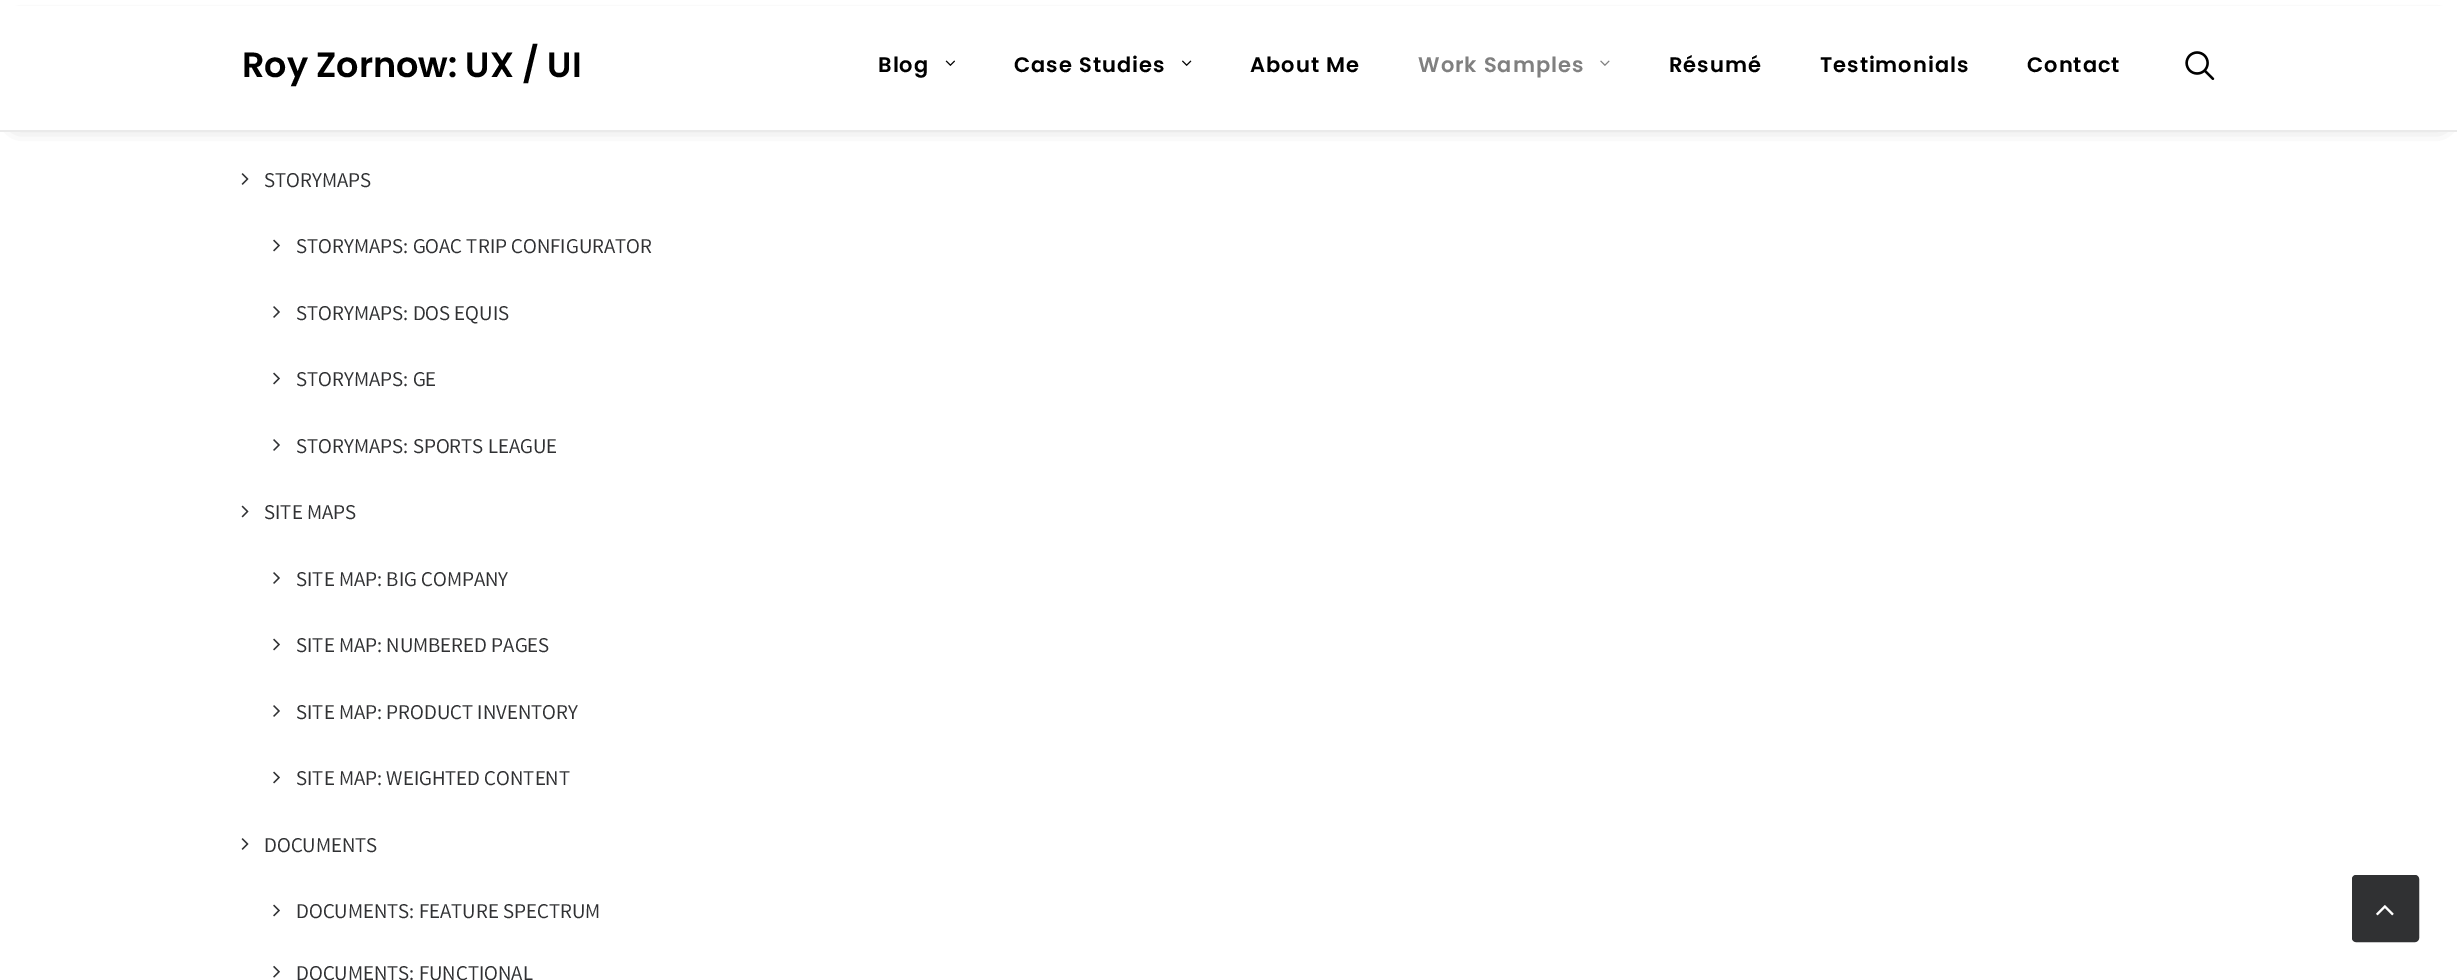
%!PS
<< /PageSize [2457 980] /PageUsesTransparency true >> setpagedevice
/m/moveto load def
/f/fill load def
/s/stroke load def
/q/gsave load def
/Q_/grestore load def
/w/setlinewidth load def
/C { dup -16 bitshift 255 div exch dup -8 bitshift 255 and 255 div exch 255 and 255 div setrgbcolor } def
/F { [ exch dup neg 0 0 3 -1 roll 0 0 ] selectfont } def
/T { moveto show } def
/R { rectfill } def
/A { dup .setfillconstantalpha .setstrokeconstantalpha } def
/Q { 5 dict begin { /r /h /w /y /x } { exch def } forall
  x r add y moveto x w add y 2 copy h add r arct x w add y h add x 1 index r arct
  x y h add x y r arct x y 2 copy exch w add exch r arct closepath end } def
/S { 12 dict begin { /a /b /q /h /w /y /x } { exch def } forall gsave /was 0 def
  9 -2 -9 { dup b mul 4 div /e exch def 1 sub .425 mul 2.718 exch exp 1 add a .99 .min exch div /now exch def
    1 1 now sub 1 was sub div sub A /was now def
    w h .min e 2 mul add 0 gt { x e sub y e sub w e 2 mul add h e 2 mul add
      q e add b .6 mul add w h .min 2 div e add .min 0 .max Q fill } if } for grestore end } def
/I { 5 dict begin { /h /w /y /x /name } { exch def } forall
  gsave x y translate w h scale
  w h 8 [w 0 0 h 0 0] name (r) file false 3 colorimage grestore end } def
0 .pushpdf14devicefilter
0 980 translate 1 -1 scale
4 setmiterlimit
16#FFFFFF C
0 0 2457 980 R
16#000000 C
18 25 2422 96 0 9 .6 S
16#FFFFFF C
0 6 2457 124 R
16#EAEAEA C
0 130 2457 2 R
/Poppins-SemiBold 35 F
16#000000 C
(Roy Zornow: UX / UI) 242 77 T
/Poppins-SemiBold 21 F
878 72 m 1 0 (Blog) ashow
(1.rgb) 945 60 10 6 I
1014 72 m 1 0 (Case Studies) ashow
(2.rgb) 1182 60 10 6 I
1250 72 m 1 0 (About Me) ashow
16#808080 C
1418 72 m 1 0 (Work Samples) ashow
(3.rgb) 1600 60 10 6 I
16#000000 C
1669 72 m 1 0 (Résumé) ashow
1820 72 m 1 0 (Testimonials) ashow
2027 72 m 1 0 (Contact) ashow
(4.rgb) 2185 51 30 29 I
(5.rgb) 241 173 8 12 I
/Varta-Regular 21 F
16#303133 C
(STORYMAPS) 264 187 T
(6.rgb) 273 239 7 13 I
(STORYMAPS: GOAC TRIP CONFIGURATOR) 296 253 T
(7.rgb) 273 306 7 12 I
(STORYMAPS: DOS EQUIS) 296 320 T
(6.rgb) 273 372 7 13 I
(STORYMAPS: GE) 296 386 T
(7.rgb) 273 439 7 12 I
(STORYMAPS: SPORTS LEAGUE) 296 453 T
(8.rgb) 241 505 8 13 I
(SITE MAPS) 264 519 T
(7.rgb) 273 572 7 12 I
(SITE MAP: BIG COMPANY) 296 586 T
(6.rgb) 273 638 7 13 I
(SITE MAP: NUMBERED PAGES) 296 652 T
(7.rgb) 273 705 7 12 I
(SITE MAP: PRODUCT INVENTORY) 296 719 T
(6.rgb) 273 771 7 13 I
(SITE MAP: WEIGHTED CONTENT) 296 785 T
(5.rgb) 241 838 8 12 I
(DOCUMENTS) 264 852 T
(6.rgb) 273 904 7 13 I
(DOCUMENTS: FEATURE SPECTRUM) 296 918 T
(9.rgb) 273 965 7 13 I
(DOCUMENTS: FUNCTIONAL) 296 980 T
2353 876 65 65 3 Q q f Q_
2 w
s
(10.rgb) 2376 905 18 11 I
.poppdf14devicefilter showpage
